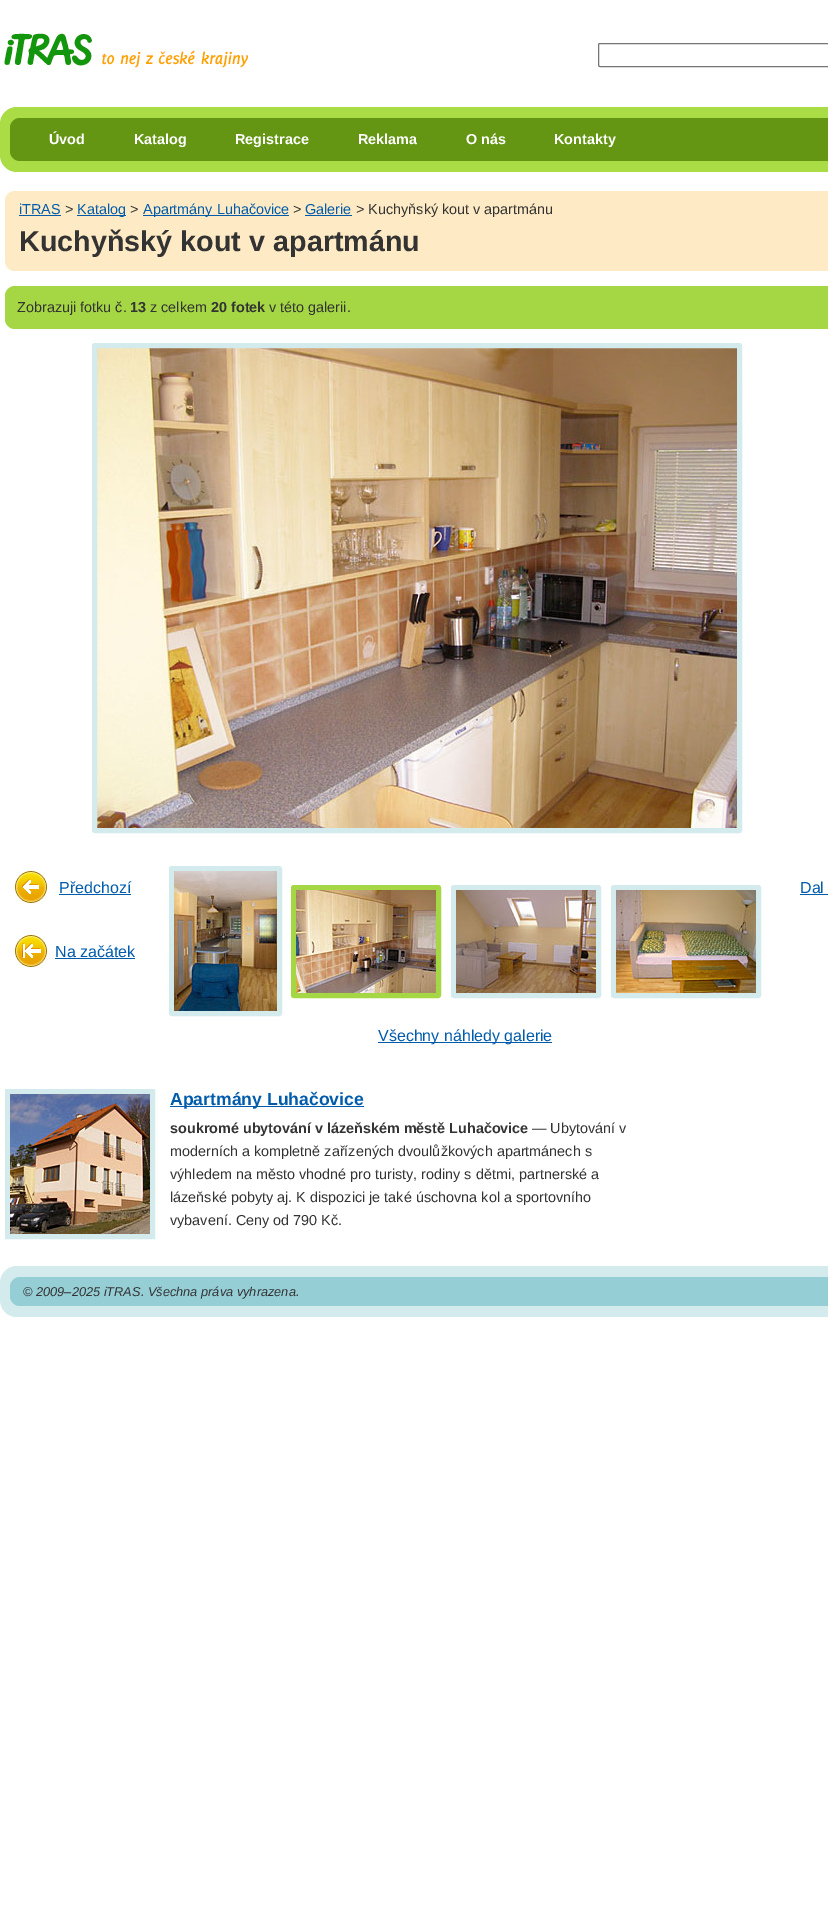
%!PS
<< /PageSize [828 1905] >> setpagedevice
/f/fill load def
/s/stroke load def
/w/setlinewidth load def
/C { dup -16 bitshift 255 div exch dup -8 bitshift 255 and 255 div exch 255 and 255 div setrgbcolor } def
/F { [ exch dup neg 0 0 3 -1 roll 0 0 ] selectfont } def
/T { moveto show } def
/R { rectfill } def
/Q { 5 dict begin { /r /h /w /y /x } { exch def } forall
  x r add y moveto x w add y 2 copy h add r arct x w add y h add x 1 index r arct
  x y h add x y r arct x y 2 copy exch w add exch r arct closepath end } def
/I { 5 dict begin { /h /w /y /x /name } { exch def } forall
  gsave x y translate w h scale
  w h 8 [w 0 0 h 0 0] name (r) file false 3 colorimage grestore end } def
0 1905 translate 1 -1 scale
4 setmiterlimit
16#FFFFFF C
0 0 828 1905 R
(1.rgb) 4 33 244 35 I
16#767676 C
598.5 43.5 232 23 1.5 Q s
16#AADC46 C
0 107 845 65 17 Q f
16#649614 C
10 118 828 43 10 Q f
/LiberationSans-Bold 14.4 F
16#FFFFFF C
(Úvod) 49 144 T
(Katalog) 134 144 T
(Registrace) 235 144 T
(Reklama) 358 144 T
(O nás) 466 144 T
(Kontakty) 554 144 T
16#FEEAC4 C
5 191 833 80 10 Q f
/LiberationSans-Regular 14.4 F
16#005CAB C
(iTRAS) 19 214 T
19 215 42 1 R
16#333333 C
(>) 65 214 T
16#005CAB C
77 215 49 1 R
(Katalog) 77 214 T
16#333333 C
(>) 130 214 T
16#005CAB C
143 215 146 1 R
(Apartmány Luhačovice) 143 214 T
16#333333 C
(>) 293 214 T
16#005CAB C
(Galerie) 305 214 T
305 215 47 1 R
16#333333 C
(> Kuchyňský kout v apartmánu) 356 214 T
/LiberationSans-Bold 28.75 F
(Kuchyňský kout v apartmánu) 19 251 T
16#A5D643 C
5 286 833 43 10 Q f
/LiberationSans-Regular 14.4 F
16#333333 C
(Zobrazuji fotku č.) 17 312 T
/LiberationSans-Bold 14.4 F
(13) 130 312 T
/LiberationSans-Regular 14.4 F
(z celkem) 150 312 T
/LiberationSans-Bold 14.4 F
(20 fotek) 211 312 T
/LiberationSans-Regular 14.4 F
(v této galerii.) 269 312 T
(2.rgb) 97 348 640 480 I
16#D4EBEE C
5 w
94.5 345.5 645 485 .5 Q s
(3.rgb) 15 871 32 32 I
/LiberationSans-Regular 16 F
16#005CAB C
(Předchozí) 59 893 T
59 894 72 1 R
(4.rgb) 15 935 32 32 I
(Na začátek) 55 957 T
55 958 80 1 R
(Dal) 800 893 T
800 894 28 1 R
16#D4EBEE C
171.5 868.5 108 145 .5 Q s
(5.rgb) 174 871 103 140 I
16#A5D643 C
293.5 887.5 145 108 .5 Q s
16#D4EBEE C
453.5 887.5 145 108 .5 Q s
613.5 887.5 145 108 .5 Q s
(6.rgb) 296 890 140 103 I
(7.rgb) 456 890 140 103 I
(8.rgb) 616 890 140 103 I
16#005CAB C
378 1042 174 1 R
(Všechny náhledy galerie) 378 1041 T
16#D4EBEE C
7.5 1091.5 145 145 rectstroke
(9.rgb) 10 1094 140 140 I
16#005CAB C
170 1106 194 1 R
/LiberationSans-Bold 17.6 F
(Apartmány Luhačovice) 170 1105 T
/LiberationSans-Bold 14.4 F
16#333333 C
(soukromé ubytování v lázeňském městě Luhačovice) 170 1133 T
/LiberationSans-Regular 14.4 F
(— Ubytování v) 532 1133 T
(moderních a kompletně zařízených dvoulůžkových apartmánech s) 170 1156 T
(výhledem na město vhodné pro turisty, rodiny s dětmi, partnerské a) 170 1179 T
(lázeňské pobyty aj. K dispozici je také úschovna kol a sportovního) 170 1202 T
(vybavení. Ceny od 790 Kč.) 170 1225 T
16#D4EBEE C
0 1266 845 51 17 Q f
16#96CED6 C
10 1277 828 29 10 Q f
/LiberationSans-Italic 12.8 F
16#333333 C
(© 2009–2025 iTRAS. Všechna práva vyhrazena.) 23 1296 T
showpage
